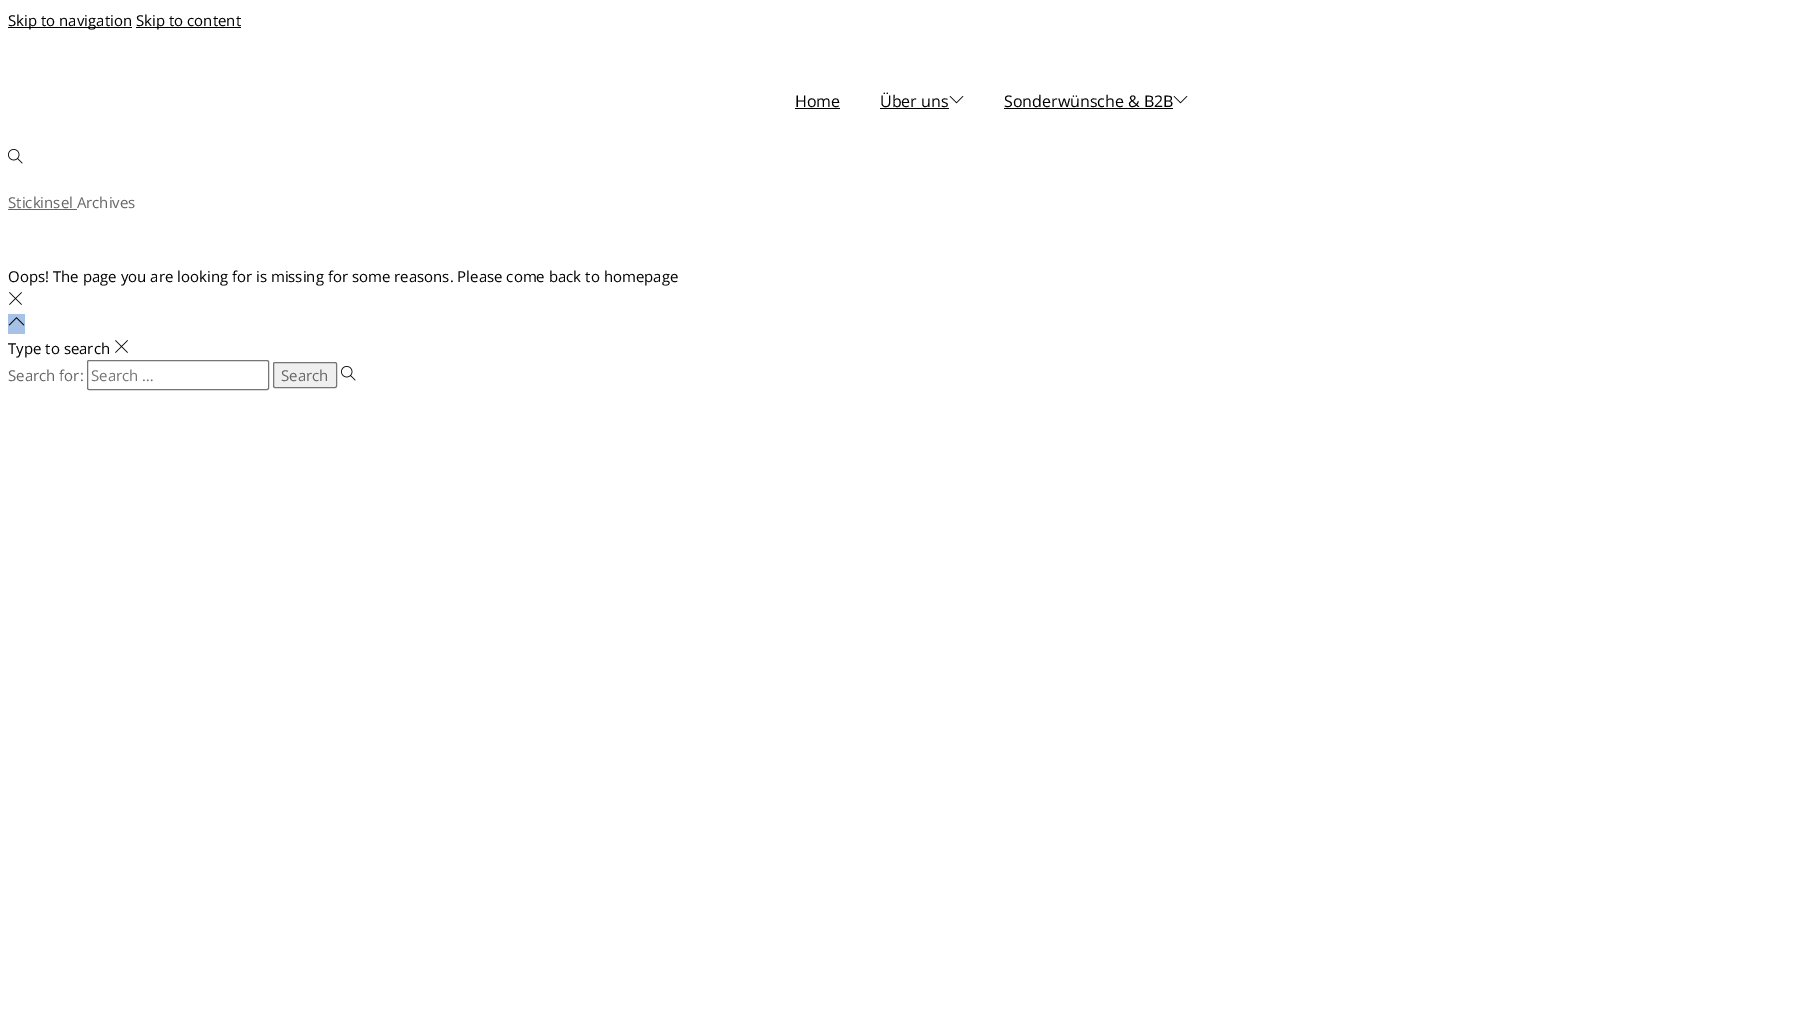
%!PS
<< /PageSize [1812 1012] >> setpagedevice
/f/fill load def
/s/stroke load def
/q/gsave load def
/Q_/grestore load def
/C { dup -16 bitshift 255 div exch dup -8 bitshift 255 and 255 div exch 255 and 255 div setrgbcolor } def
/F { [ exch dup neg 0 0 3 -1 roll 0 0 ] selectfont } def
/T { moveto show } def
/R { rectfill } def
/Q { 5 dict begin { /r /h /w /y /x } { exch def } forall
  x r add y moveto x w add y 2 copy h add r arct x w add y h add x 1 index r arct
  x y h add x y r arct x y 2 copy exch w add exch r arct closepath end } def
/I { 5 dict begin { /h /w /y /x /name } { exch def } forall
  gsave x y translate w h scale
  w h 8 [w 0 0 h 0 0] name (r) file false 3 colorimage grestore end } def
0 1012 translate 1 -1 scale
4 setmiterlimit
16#FFFFFF C
0 0 1812 1012 R
16#000000 C
8 27 124 1 R
/OpenSans-Regular 15 F
(Skip to navigation) 8 26 T
136 27 105 1 R
(Skip to content) 136 26 T
/OpenSans-Regular 16 F
(Home) 795 107 T
795 108 45 1 R
(Über uns) 880 107 T
880 108 69 1 R
(1.rgb) 949 96 15 8 I
(Sonderwünsche & B2B) 1004 107 T
1004 108 169 1 R
(1.rgb) 1173 96 15 8 I
(2.rgb) 8 149 15 15 I
/OpenSans-Regular 15 F
16#666666 C
(Stickinsel Archives) 8 208 T
8 209 69 1 R
16#000000 C
(Oops! The page you are looking for is missing for some reasons. Please come back to homepage) 8 282 T
(3.rgb) 9 292 13 13 I
16#A6C2E6 C
8 314 17 20 R
(4.rgb) 8 317 17 9 I
16#000000 C
(Type to search) 8 354 T
(3.rgb) 115 340 13 13 I
16#666666 C
(Search for:) 8 381 T
16#767676 C
87.5 360.5 181 29 1.5 Q s
16#757575 C
(Search …) 91 381 T
16#EFEFEF C
273.5 362.5 63 25 1.5 Q q f Q_
16#767676 C
s
16#666666 C
(Search) 281 381 T
(2.rgb) 341 366 15 15 I
showpage
